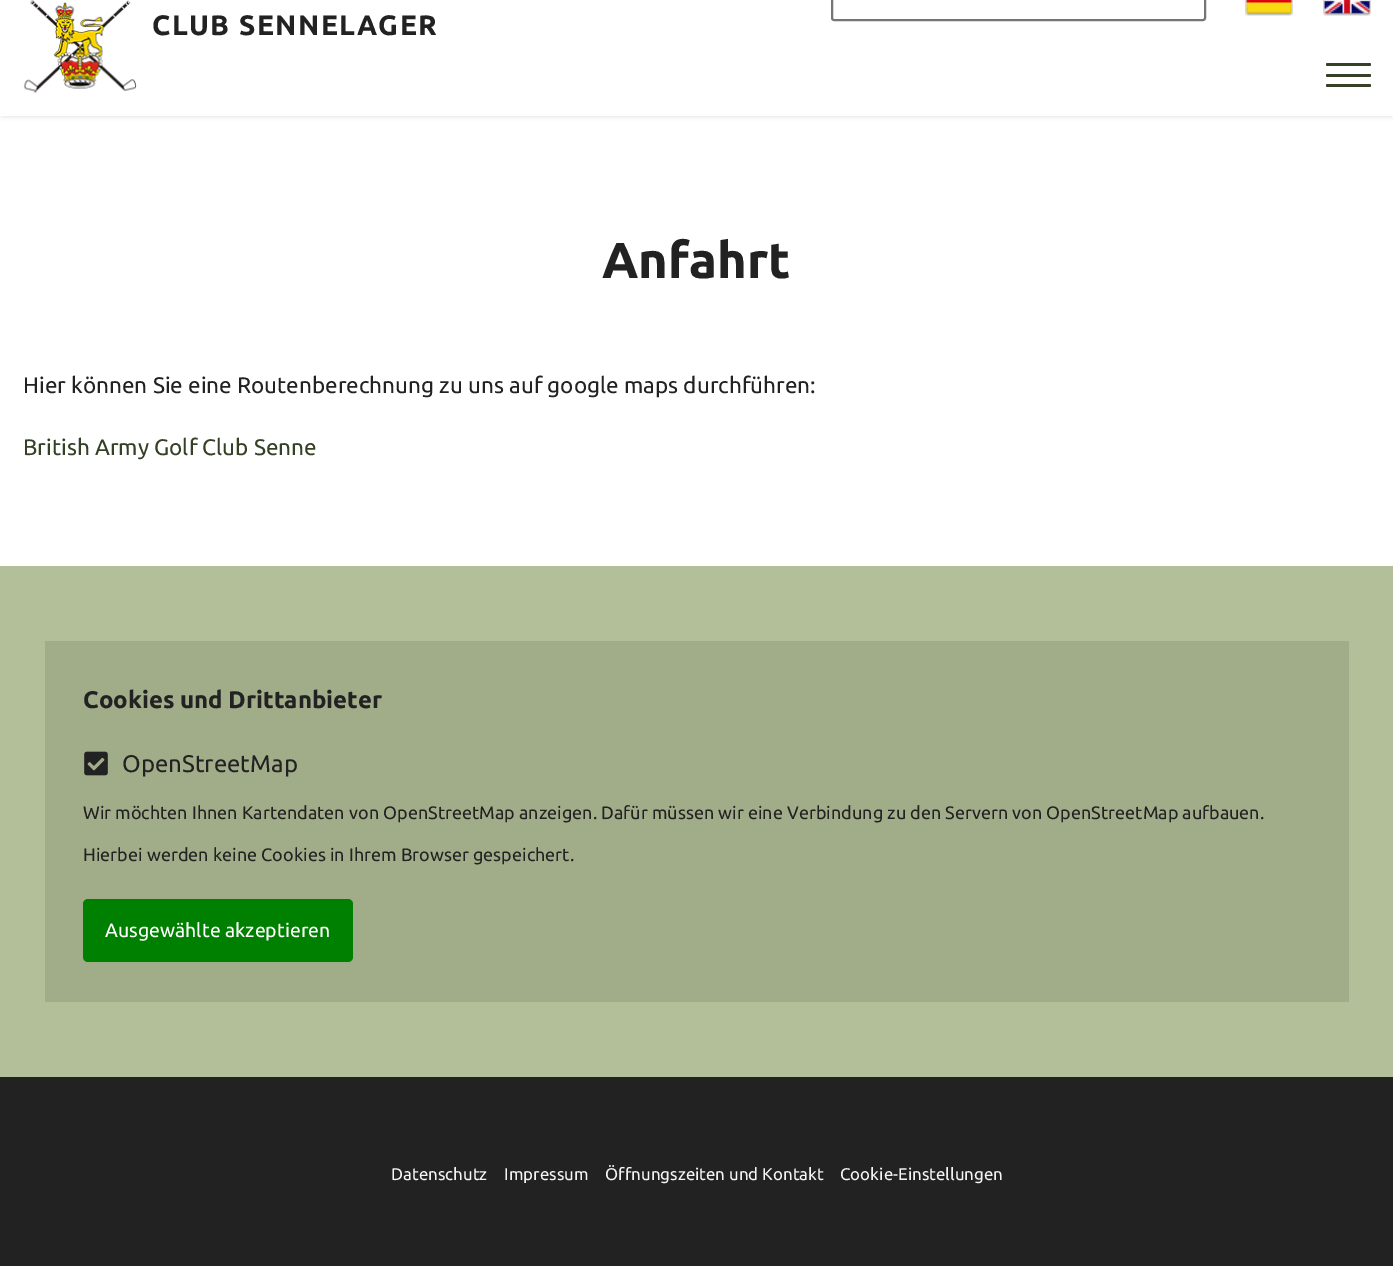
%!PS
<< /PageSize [1393 1266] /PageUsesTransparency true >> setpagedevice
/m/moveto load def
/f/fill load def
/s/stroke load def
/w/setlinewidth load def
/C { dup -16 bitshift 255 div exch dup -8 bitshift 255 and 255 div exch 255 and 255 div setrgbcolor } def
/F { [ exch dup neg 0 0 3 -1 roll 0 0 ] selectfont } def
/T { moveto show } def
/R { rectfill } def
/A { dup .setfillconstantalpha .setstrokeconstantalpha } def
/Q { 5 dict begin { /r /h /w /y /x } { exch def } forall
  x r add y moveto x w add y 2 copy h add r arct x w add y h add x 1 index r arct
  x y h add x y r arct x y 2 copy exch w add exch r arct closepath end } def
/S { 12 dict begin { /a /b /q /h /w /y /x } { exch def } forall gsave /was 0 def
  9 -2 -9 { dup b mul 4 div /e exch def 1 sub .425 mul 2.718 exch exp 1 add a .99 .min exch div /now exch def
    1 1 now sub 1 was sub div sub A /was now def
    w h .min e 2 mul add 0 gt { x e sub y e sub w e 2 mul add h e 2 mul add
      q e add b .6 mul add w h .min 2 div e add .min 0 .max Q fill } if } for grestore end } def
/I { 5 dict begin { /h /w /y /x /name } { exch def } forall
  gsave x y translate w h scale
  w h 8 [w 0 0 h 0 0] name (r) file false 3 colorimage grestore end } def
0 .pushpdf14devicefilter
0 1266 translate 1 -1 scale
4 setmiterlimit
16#FFFFFF C
0 0 1393 1266 R
16#000000 C
2 -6 1390 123 0 2 .1 S
16#FFFFFF C
0 0 1393 116 R
16#767676 C
2 w
832 -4 373 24 2 Q s
(1.rgb) 1245 0 48 16 I
(2.rgb) 1323 0 48 16 I
(3.rgb) 23 0 114 93 I
/Ubuntu-Bold 28.1 F
16#222222 C
152 35 m 1.5 0 (CLUB SENNELAGER) ashow
16#354024 C
1326 74 45 3 1.5 Q f
1326 63 45 3 1.5 Q f
1326 84 45 3 1.5 Q f
/Ubuntu-Bold 50.5 F
16#222222 C
(Anfahrt) 602 278 T
/Ubuntu-Regular 22.5 F
(Hier können Sie eine Routenberechnung zu uns auf google maps durchführen:) 23 393 T
16#354024 C
(British Army Golf Club Senne) 23 455 T
16#B3BF99 C
0 566 1393 511 R
16#A1AD89 C
45 641 1304 361 R
/Ubuntu-Bold 24 F
16#222222 C
(Cookies und Drittanbieter) 83 708 T
(4.rgb) 84 751 24 25 I
/Ubuntu-Regular 24 F
(OpenStreetMap) 122 772 T
/Ubuntu-Regular 18 F
(Wir möchten Ihnen Kartendaten von OpenStreetMap anzeigen. Dafür müssen wir eine Verbindung zu den Servern von OpenStreetMap aufbauen.) 83 819 T
(Hierbei werden keine Cookies in Ihrem Browser gespeichert.) 83 861 T
16#008000 C
83 899 270 63 5 Q f
/Ubuntu-Regular 19.5 F
16#FFFFFF C
(Ausgewählte akzeptieren) 105 937 T
16#222222 C
0 1077 1393 189 R
/Ubuntu-Regular 16.9 F
16#F5F5F5 C
(Datenschutz) 391 1180 T
(Impressum) 504 1180 T
(Öffnungszeiten und Kontakt) 605 1180 T
(Cookie-Einstellungen) 840 1180 T
.poppdf14devicefilter showpage
